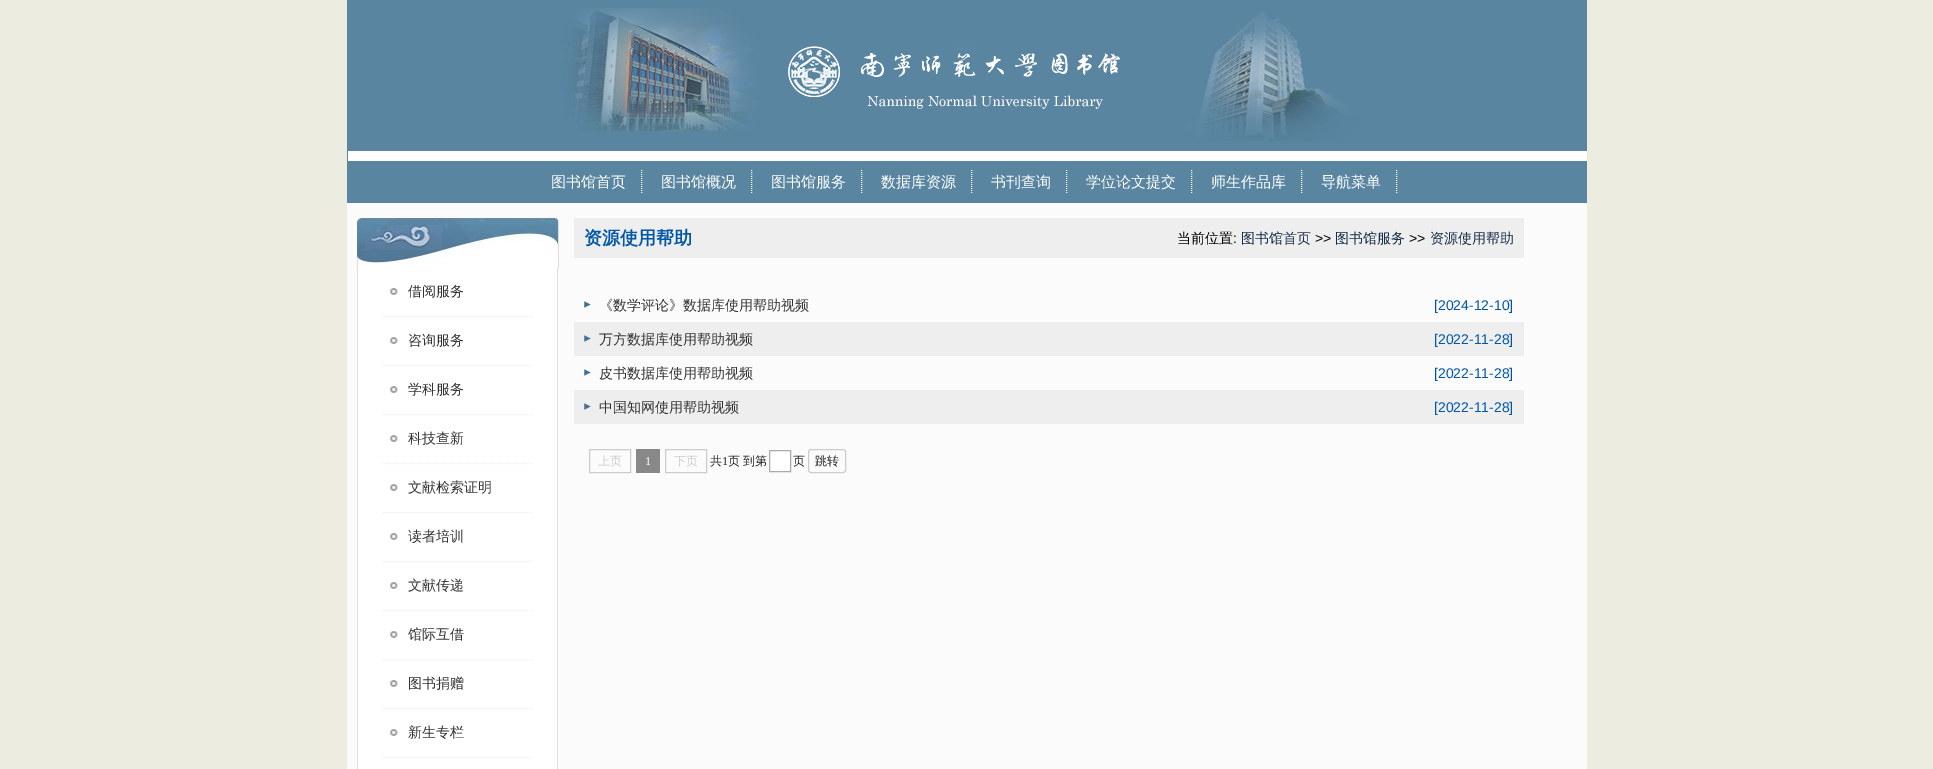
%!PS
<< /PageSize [1933 769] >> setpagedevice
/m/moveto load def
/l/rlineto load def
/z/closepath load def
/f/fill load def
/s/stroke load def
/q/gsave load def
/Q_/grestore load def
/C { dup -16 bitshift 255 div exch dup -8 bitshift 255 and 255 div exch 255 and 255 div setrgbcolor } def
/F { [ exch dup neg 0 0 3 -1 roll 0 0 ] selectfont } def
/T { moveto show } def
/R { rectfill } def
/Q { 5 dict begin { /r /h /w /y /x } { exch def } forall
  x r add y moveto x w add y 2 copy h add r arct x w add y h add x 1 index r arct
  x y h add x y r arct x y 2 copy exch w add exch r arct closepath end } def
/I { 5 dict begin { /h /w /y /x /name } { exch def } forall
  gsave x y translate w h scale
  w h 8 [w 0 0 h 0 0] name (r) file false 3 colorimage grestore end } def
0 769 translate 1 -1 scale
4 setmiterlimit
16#ECECE0 C
0 0 1933 769 R
16#FBFBFB C
347 203 1240 566 R
(1.rgb) 347 0 1240 161 I
16#5985A1 C
347 161 1240 42 R
16#FFFFFF C
[1 1] 0 setdash
641.5 170 m 0 24 l s
/WenQuanYiZenHei-Medium 15 F
(图书馆首页) 551 187 T
751.5 170 m 0 24 l s
(图书馆概况) 661 187 T
861.5 170 m 0 24 l s
(图书馆服务) 771 187 T
971.5 170 m 0 24 l s
(数据库资源) 881 187 T
1066.5 170 m 0 24 l s
(书刊查询) 991 187 T
1191.5 170 m 0 24 l s
(学位论文提交) 1086 187 T
1301.5 170 m 0 24 l s
(师生作品库) 1211 187 T
1396.5 170 m 0 24 l s
(导航菜单) 1321 187 T
(2.rgb) 357 218 204 50 I
358 268 199 501 R
16#DDDDDD C
557 268 1 501 R
357 268 1 501 R
(3.rgb) 390 288 8 7 I
16#EEEEEE C
383 316.5 m 149 0 l s
/WenQuanYiZenHei-Medium 14 F
16#333333 C
(借阅服务) 408 296 T
(3.rgb) 390 337 8 7 I
16#EEEEEE C
383 365.5 m 149 0 l s
16#333333 C
(咨询服务) 408 345 T
(3.rgb) 390 386 8 7 I
16#EEEEEE C
383 414.5 m 149 0 l s
16#333333 C
(学科服务) 408 394 T
(3.rgb) 390 435 8 7 I
16#EEEEEE C
383 463.5 m 149 0 l s
16#333333 C
(科技查新) 408 443 T
(3.rgb) 390 484 8 7 I
16#EEEEEE C
383 512.5 m 149 0 l s
16#333333 C
(文献检索证明) 408 492 T
(3.rgb) 390 533 8 7 I
16#EEEEEE C
383 561.5 m 149 0 l s
16#333333 C
(读者培训) 408 541 T
(3.rgb) 390 582 8 7 I
16#EEEEEE C
383 610.5 m 149 0 l s
16#333333 C
(文献传递) 408 590 T
(3.rgb) 390 631 8 7 I
16#EEEEEE C
383 659.5 m 149 0 l s
16#333333 C
(馆际互借) 408 639 T
(3.rgb) 390 680 8 7 I
16#EEEEEE C
383 708.5 m 149 0 l s
16#333333 C
(图书捐赠) 408 688 T
(3.rgb) 390 729 8 7 I
16#EEEEEE C
383 757.5 m 149 0 l s
16#333333 C
(新生专栏) 408 737 T
16#EEEEEE C
574 218 950 40 R
/WenQuanYiZenHei-Bold 18 F
16#0056A7 C
(资源使用帮助) 584 244 T
/WenQuanYiZenHei-Medium 14 F
16#000000 C
(当前位置) 1177 243 T
/LiberationSans-Regular 14 F
(:) 1233 243 T
/WenQuanYiZenHei-Medium 14 F
16#172C45 C
(图书馆首页) 1241 243 T
/LiberationSans-Regular 14 F
16#000000 C
(>>) 1315 243 T
/WenQuanYiZenHei-Medium 14 F
16#172C45 C
(图书馆服务) 1335 243 T
/LiberationSans-Regular 14 F
16#000000 C
(>>) 1409 243 T
/WenQuanYiZenHei-Medium 14 F
16#172C45 C
(资源使用帮助) 1430 243 T
(4.rgb) 584 301 7 7 I
16#333333 C
(《数学评论》数据库使用帮助视频) 599 310 T
/LiberationSans-Regular 14 F
16#0056A7 C
([2024-12-10]) 1434 310 T
16#EEEEEE C
574 322 950 34 R
(5.rgb) 584 335 7 7 I
/WenQuanYiZenHei-Medium 14 F
16#333333 C
(万方数据库使用帮助视频) 599 344 T
/LiberationSans-Regular 14 F
16#0056A7 C
([2022-11-28]) 1434 344 T
(4.rgb) 584 369 7 7 I
/WenQuanYiZenHei-Medium 14 F
16#333333 C
(皮书数据库使用帮助视频) 599 378 T
/LiberationSans-Regular 14 F
16#0056A7 C
([2022-11-28]) 1434 378 T
16#EEEEEE C
574 390 950 34 R
(5.rgb) 584 403 7 7 I
/WenQuanYiZenHei-Medium 14 F
16#333333 C
(中国知网使用帮助视频) 599 412 T
/LiberationSans-Regular 14 F
16#0056A7 C
([2022-11-28]) 1434 412 T
16#CCCCCC C
[] 0 setdash
589.5 449.5 41 23 rectstroke
/WenQuanYiZenHei-Medium 12 F
(上页) 598 465 T
16#888888 C
636 449 24 24 R
/LiberationSerif-Regular 12 F
16#FFFFFF C
(1) 645 465 T
16#CCCCCC C
665.5 449.5 41 23 rectstroke
/WenQuanYiZenHei-Medium 12 F
(下页) 674 465 T
16#222222 C
(共) 710 465 T
/LiberationSerif-Regular 12 F
(1) 722 465 T
/WenQuanYiZenHei-Medium 12 F
(页) 728 465 T
(到第) 743 465 T
16#FFFFFF C
769.5 450.5 m 21 0 l 0 21 l -21 0 l z q f Q_
16#AAAAAA C
s
16#222222 C
(页) 793 465 T
16#CCCCCC C
808.5 449.5 37 23 2.5 Q s
16#222222 C
(跳转) 815 465 T
showpage
